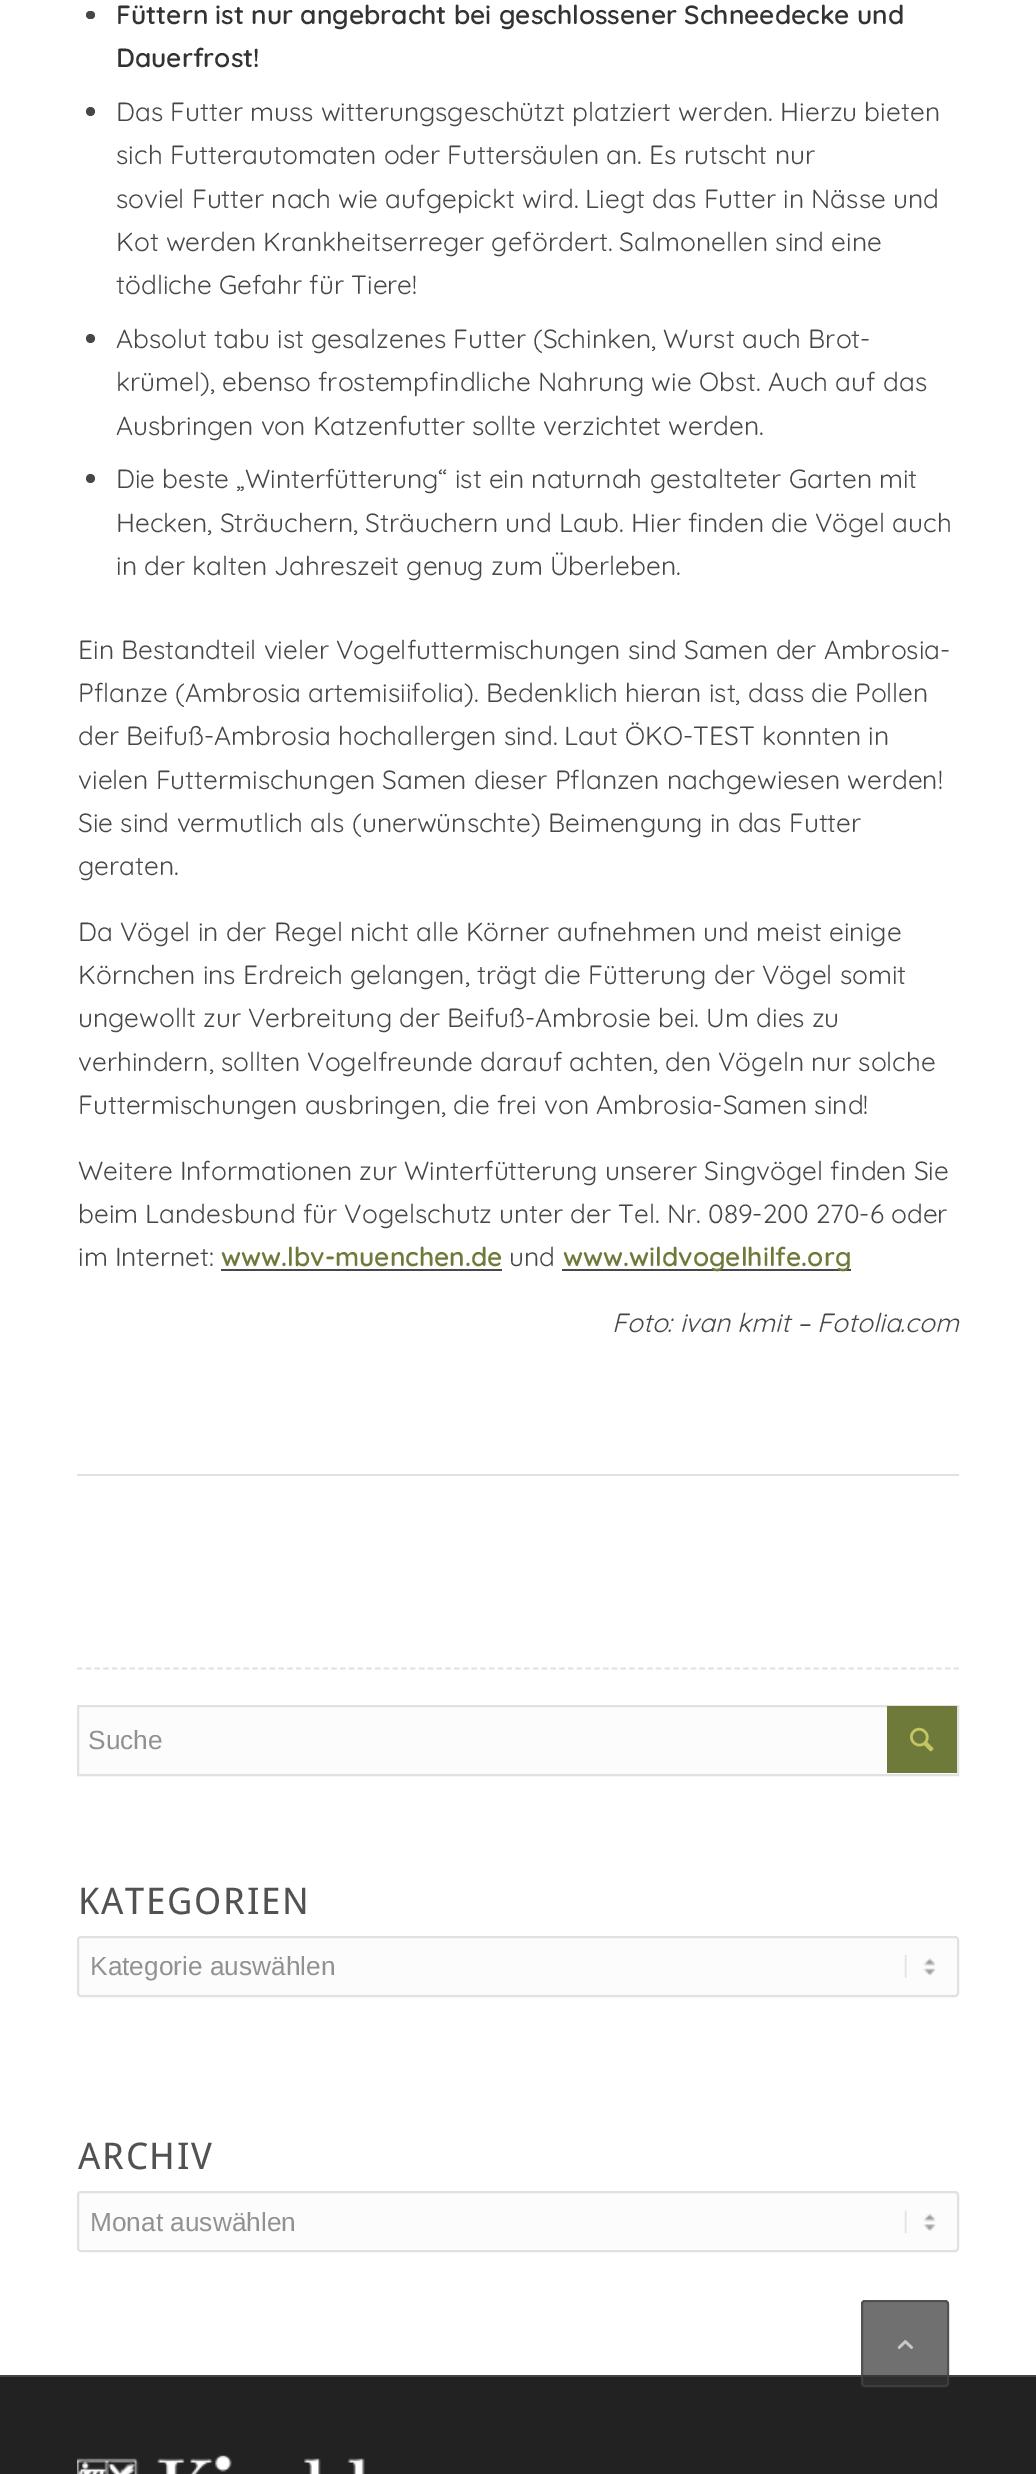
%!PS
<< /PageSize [1036 2474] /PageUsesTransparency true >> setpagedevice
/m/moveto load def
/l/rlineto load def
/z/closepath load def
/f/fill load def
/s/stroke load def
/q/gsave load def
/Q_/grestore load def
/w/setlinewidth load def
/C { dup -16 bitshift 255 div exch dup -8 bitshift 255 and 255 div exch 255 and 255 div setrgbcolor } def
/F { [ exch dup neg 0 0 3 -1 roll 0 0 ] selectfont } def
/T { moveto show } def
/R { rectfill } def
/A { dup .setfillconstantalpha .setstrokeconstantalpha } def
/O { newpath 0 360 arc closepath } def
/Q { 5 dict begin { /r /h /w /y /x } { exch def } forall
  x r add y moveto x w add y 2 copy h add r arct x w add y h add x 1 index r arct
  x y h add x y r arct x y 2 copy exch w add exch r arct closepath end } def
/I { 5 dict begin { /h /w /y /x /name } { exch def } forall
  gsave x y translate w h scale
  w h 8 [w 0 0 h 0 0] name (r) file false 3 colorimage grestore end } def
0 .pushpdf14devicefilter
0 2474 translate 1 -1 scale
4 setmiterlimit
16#FFFFFF C
0 0 1036 2474 R
16#474747 C
86 11 9 8 4 Q f
/Quicksand-SemiBold 26.25 F
16#333333 C
(Füttern ist nur angebracht bei geschlossener Schneedecke und) 116 24 T
(Dauerfrost!) 116 67 T
16#474747 C
90.5 111.5 4.5 O f
/Quicksand-Regular 26.25 F
(Das Futter muss witterungsgeschützt platziert werden. Hierzu bieten) 116 121 T
(sich Futterautomaten oder Futtersäulen an. Es rutscht nur) 116 164 T
(soviel Futter nach wie aufgepickt wird. Liegt das Futter in Nässe und) 116 208 T
(Kot werden Krankheitserreger gefördert. Salmonellen sind eine) 116 251 T
(tödliche Gefahr für Tiere!) 116 294 T
90.5 338.5 4.5 O f
(Absolut tabu ist gesalzenes Futter \(Schinken, Wurst auch Brot-) 116 348 T
(krümel\), ebenso frostempfindliche Nahrung wie Obst. Auch auf das) 116 391 T
(Ausbringen von Katzenfutter sollte verzichtet werden.) 116 435 T
90.5 478.5 4.5 O f
(Die beste „Winterfütterung“ ist ein naturnah gestalteter Garten mit) 116 488 T
(Hecken, Sträuchern, Sträuchern und Laub. Hier finden die Vögel auch) 116 532 T
(in der kalten Jahreszeit genug zum Überleben.) 116 575 T
(Ein Bestandteil vieler Vogelfuttermischungen sind Samen der Ambrosia-) 78 659 T
(Pflanze \(Ambrosia artemisiifolia\). Bedenklich hieran ist, dass die Pollen) 78 702 T
(der Beifuß-Ambrosia hochallergen sind. Laut ÖKO-TEST konnten in) 78 745 T
(vielen Futtermischungen Samen dieser Pflanzen nachgewiesen werden!) 78 789 T
(Sie sind vermutlich als \(unerwünschte\) Beimengung in das Futter) 78 832 T
(geraten.) 78 875 T
(Da Vögel in der Regel nicht alle Körner aufnehmen und meist einige) 78 941 T
(Körnchen ins Erdreich gelangen, trägt die Fütterung der Vögel somit) 78 984 T
(ungewollt zur Verbreitung der Beifuß-Ambrosie bei. Um dies zu) 78 1027 T
(verhindern, sollten Vogelfreunde darauf achten, den Vögeln nur solche) 78 1071 T
(Futtermischungen ausbringen, die frei von Ambrosia-Samen sind!) 78 1114 T
(Weitere Informationen zur Winterfütterung unserer Singvögel finden Sie) 78 1180 T
(beim Landesbund für Vogelschutz unter der Tel. Nr. 089-200 270-6 oder) 78 1223 T
(im Internet:) 78 1266 T
/Quicksand-SemiBold 26.25 F
16#6E7A39 C
(www.lbv-muenchen.de) 221 1266 T
16#474747 C
221 1269 281 2 R
/Quicksand-Regular 26.25 F
(und) 509 1266 T
562 1269 289 2 R
/Quicksand-SemiBold 26.25 F
16#6E7A39 C
(www.wildvogelhilfe.org) 563 1266 T
/Quicksand-Italic 26.25 F
16#474747 C
(Foto: ivan kmit – Fotolia.com) 612 1332 T
16#E1E1E1 C
77 1474 882 2 R
1.8 w
[5.25 3.52] 0 setdash
77 1668.5 m 882 0 l s
16#FCFCFC C
78 1706 m 880 0 l 0 69 l -880 0 l z q f Q_
16#E1E1E1 C
2 w
[] 0 setdash
s
/LiberationSans-Regular 26.25 F
16#919191 C
(Suche) 88 1749 T
16#6E7A39 C
887 1706 70 67 R
(1.rgb) 910 1727 24 25 I
/DroidSans-Regular 36.75 F
16#525252 C
78 1914 m 1.75 0 (KATEGORIEN) ashow
16#FCFCFC C
77 1936 882 61 4 Q f
(2.rgb) 904 1955 32 23 I
16#E1E1E1 C
78 1937 880 59 3 Q s
/LiberationSans-Regular 26.25 F
16#919191 C
(Kategorie auswählen) 90 1975 T
/DroidSans-Regular 36.75 F
16#525252 C
78 2169 m 1.75 0 (ARCHIV) ashow
16#FCFCFC C
77 2191 882 61 4 Q f
(3.rgb) 904 2210 32 24 I
16#E1E1E1 C
78 2192 880 59 3 Q s
/LiberationSans-Regular 26.25 F
16#919191 C
(Monat auswählen) 90 2231 T
16#222222 C
0 2377 1036 97 R
16#444444 C
0 2375 1036 2 R
(4.rgb) 77 2455 288 19 I
0.7 A
16#333333 C
861 2300 88 87 4 Q f
16#444444 C
862 2301 86 85 3 Q s
1 A
(5.rgb) 897 2340 16 9 I
.poppdf14devicefilter showpage
